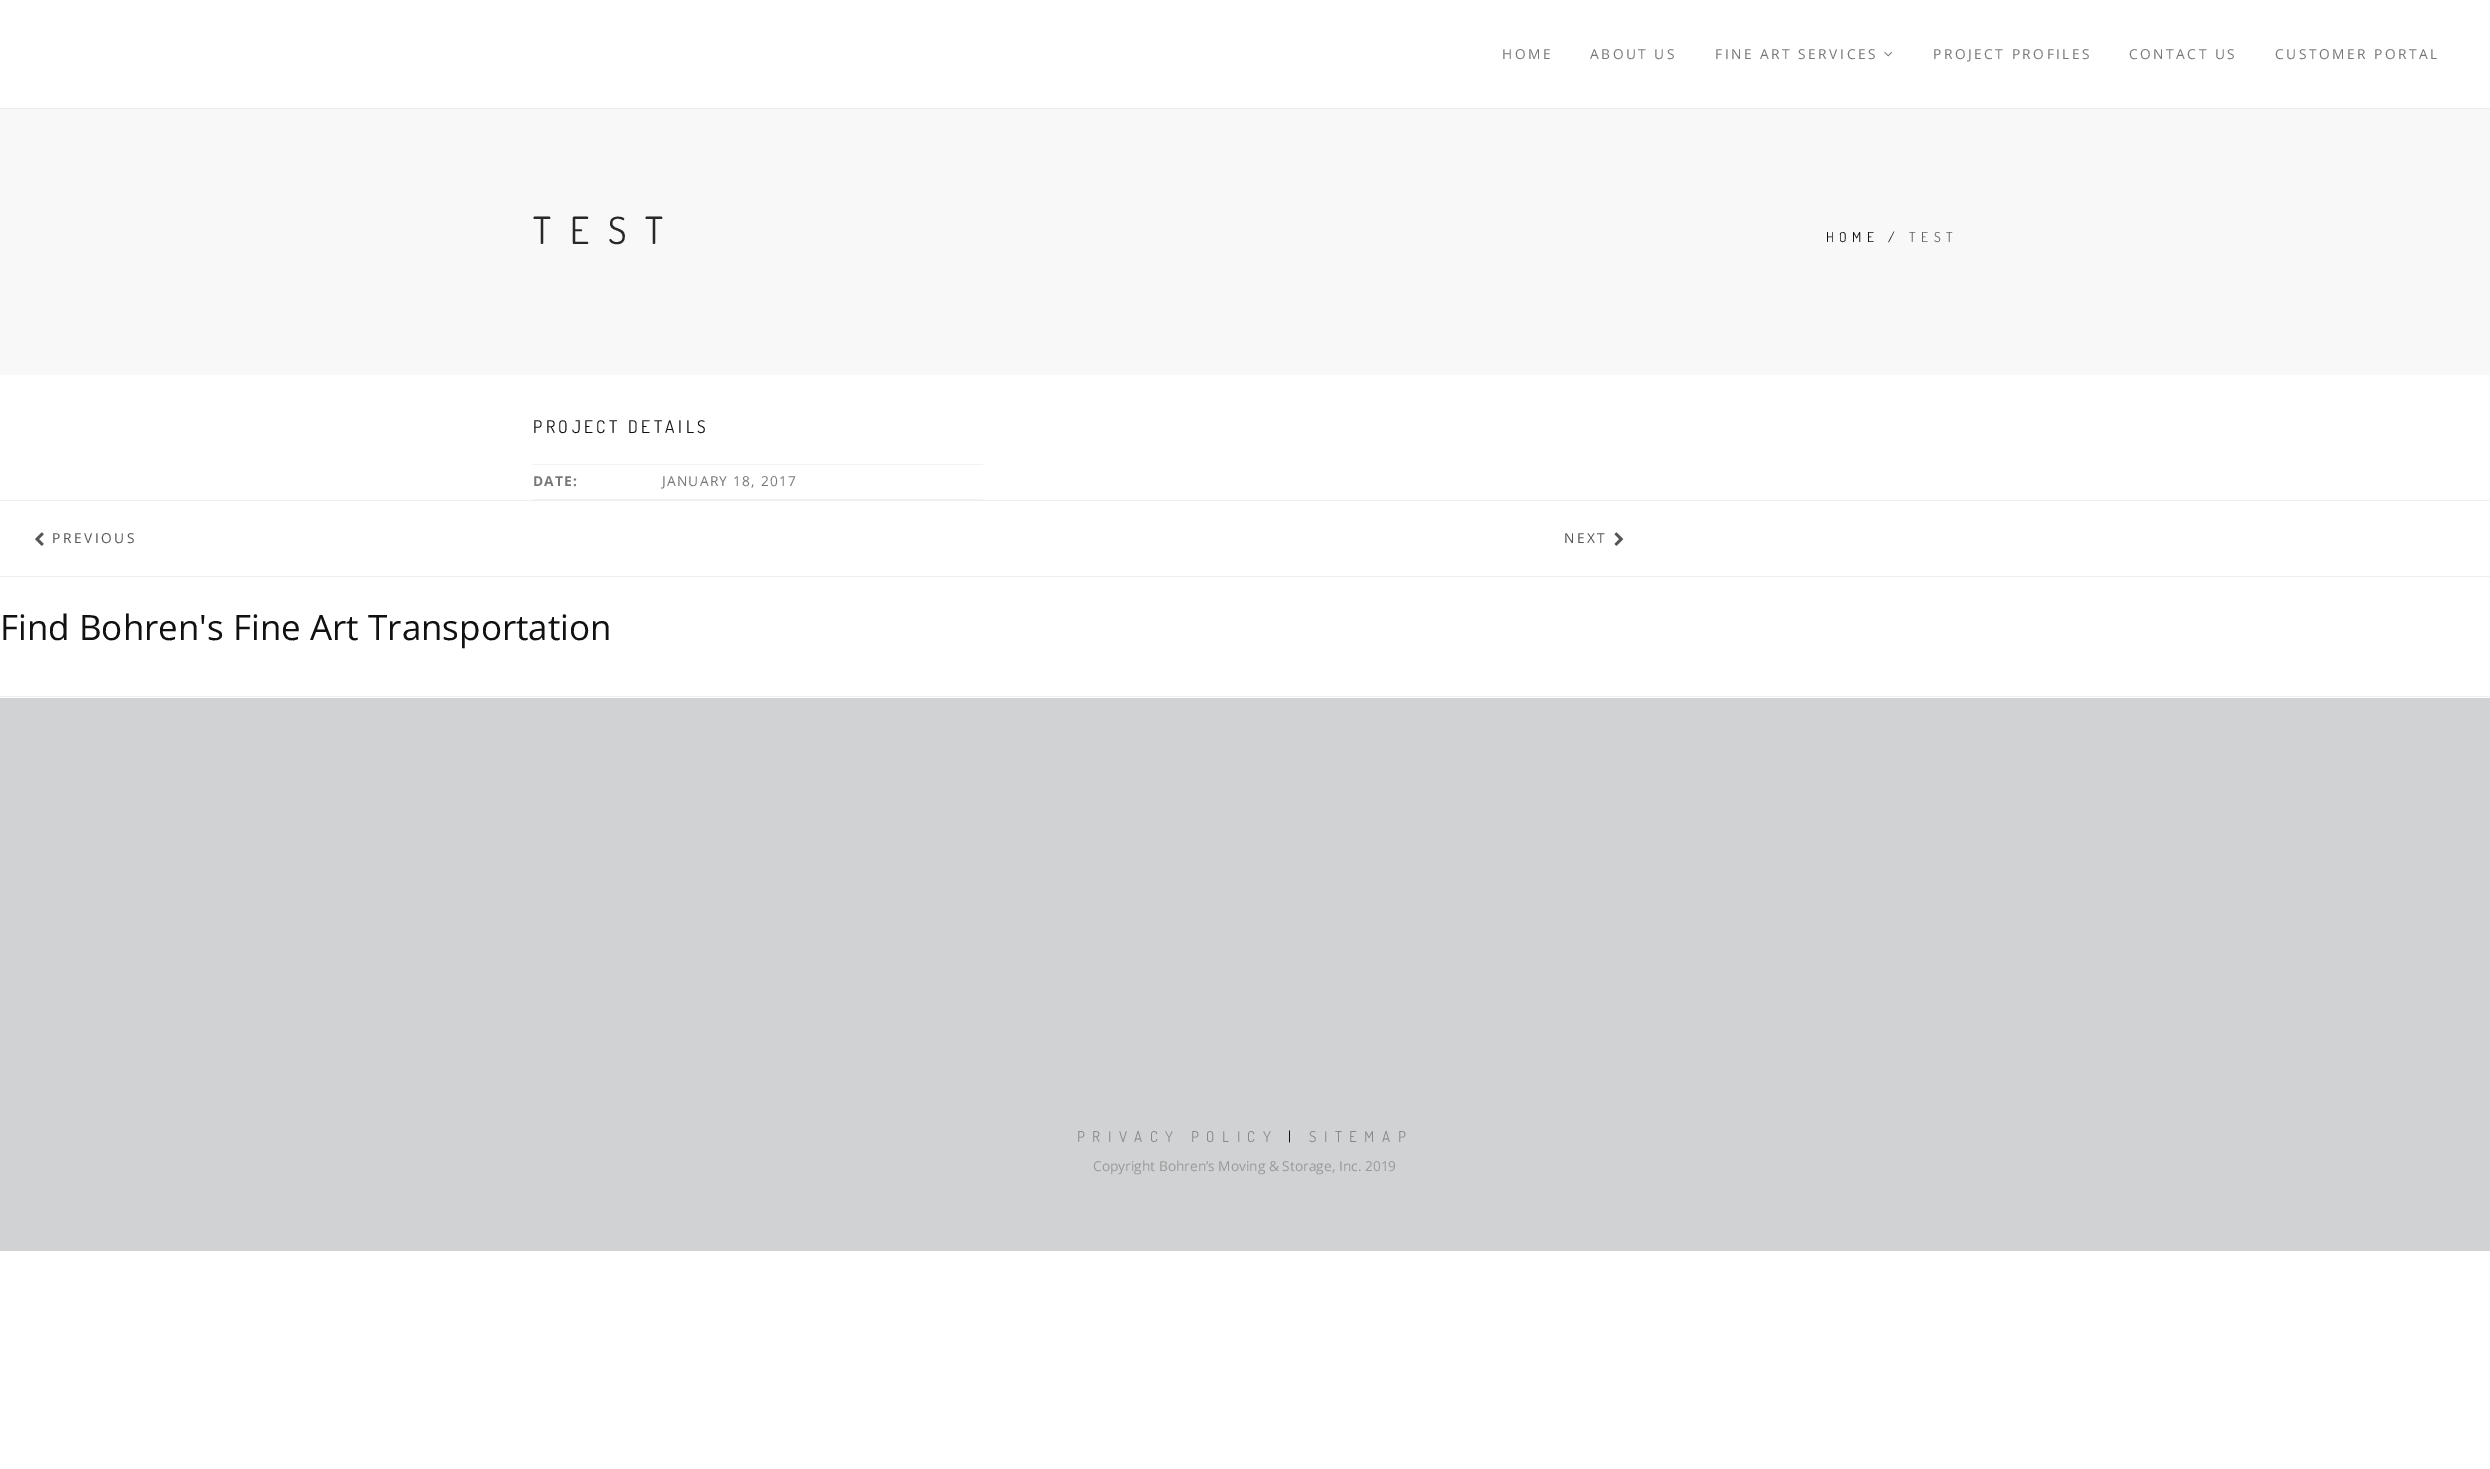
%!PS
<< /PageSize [2490 1469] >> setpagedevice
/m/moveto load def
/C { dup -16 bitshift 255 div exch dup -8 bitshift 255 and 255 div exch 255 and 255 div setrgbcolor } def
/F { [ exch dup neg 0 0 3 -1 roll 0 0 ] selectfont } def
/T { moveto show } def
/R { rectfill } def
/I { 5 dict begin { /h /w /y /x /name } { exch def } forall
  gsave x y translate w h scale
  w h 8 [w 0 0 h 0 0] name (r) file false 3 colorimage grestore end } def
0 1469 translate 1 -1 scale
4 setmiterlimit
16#FFFFFF C
0 0 2490 1469 R
16#ECECEC C
0 108 2490 1 R
/OpenSans-Regular 13.75 F
16#777777 C
1502 59 m 2.5 0 (HOME) ashow
1590 59 m 2.5 0 (ABOUT US) ashow
1715 59 m 2.5 0 (FINE ART SERVICES) ashow
(1.rgb) 1884 52 8 5 I
1933 59 m 2.5 0 (PROJECT PROFILES) ashow
2129 59 m 2.5 0 (CONTACT US) ashow
2275 59 m 2.5 0 (CUSTOMER PORTAL) ashow
16#F8F8F8 C
0 109 2490 266 R
/Dosis-Regular 37.5 F
16#282828 C
533 244 m 19 0 (TEST) ashow
/Dosis-Regular 13.75 F
16#111111 C
1826 242 m 5.5 0 (HOME /) ashow
16#626262 C
1909 242 m 5.5 0 (TEST) ashow
/Dosis-Regular 17.5 F
16#111111 C
533 433 m 3.5 0 (PROJECT DETAILS) ashow
16#F2F2F2 C
533 464 450 1 R
533 499 450 1 R
/OpenSans-Bold 13.75 F
16#777777 C
533 486 m 1.25 0 (DATE:) ashow
/OpenSans-Regular 13.75 F
662 486 m 1.25 0 (JANUARY 18, 2017) ashow
16#EEEEEE C
0 500 2490 1 R
(2.rgb) 35 532 9 14 I
16#555555 C
52 543 m 2.5 0 (PREVIOUS) ashow
1564 543 m 2.5 0 (NEXT) ashow
(3.rgb) 1614 532 10 14 I
16#EEEEEE C
0 576 2490 1 R
/OpenSans-Regular 35 F
16#111111 C
(Find Bohren's Fine Art Transportation) 0 640 T
16#EEEEEE C
0 696 2490 1 R
16#D1D2D4 C
0 698 2490 553 R
/Dosis-Regular 15 F
16#888888 C
1077 1142 m 7.5 0 (PRIVACY POLICY) ashow
16#111111 C
1288 1142 m 7.5 0 (|) ashow
16#888888 C
1309 1142 m 7.5 0 (SITEMAP) ashow
/OpenSans-Regular 13.75 F
16#999999 C
(Copyright Bohren’s Moving & Storage, Inc. 2019) 1093 1171 T
showpage
